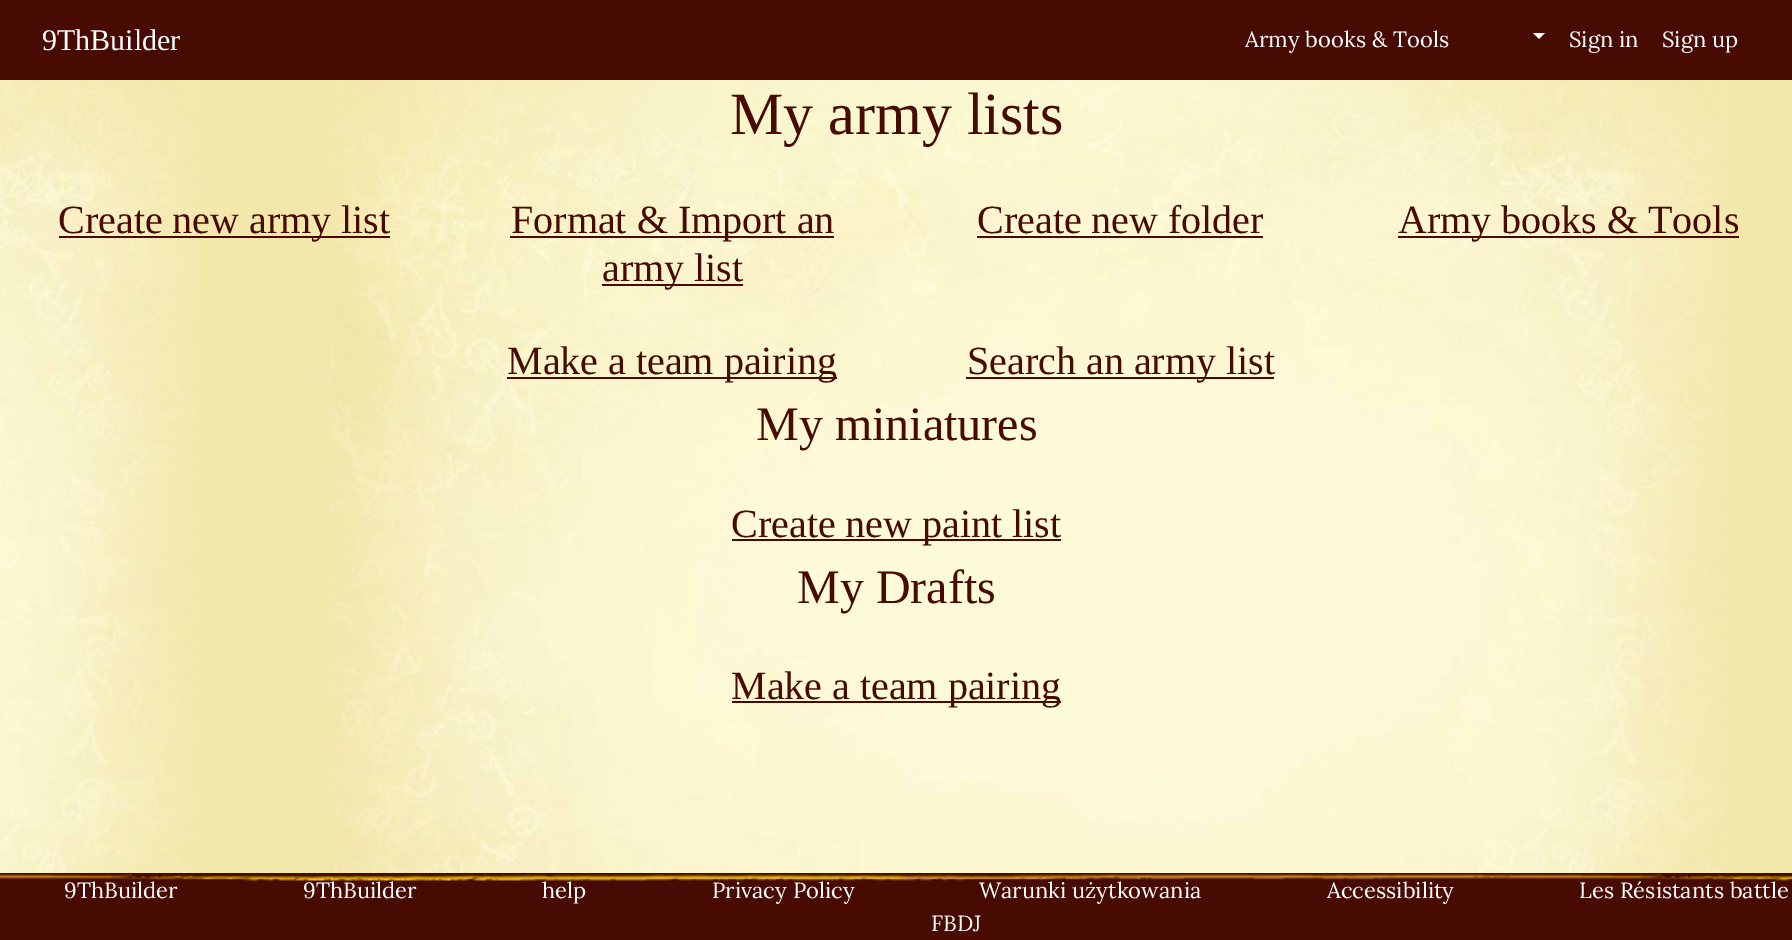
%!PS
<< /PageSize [1792 940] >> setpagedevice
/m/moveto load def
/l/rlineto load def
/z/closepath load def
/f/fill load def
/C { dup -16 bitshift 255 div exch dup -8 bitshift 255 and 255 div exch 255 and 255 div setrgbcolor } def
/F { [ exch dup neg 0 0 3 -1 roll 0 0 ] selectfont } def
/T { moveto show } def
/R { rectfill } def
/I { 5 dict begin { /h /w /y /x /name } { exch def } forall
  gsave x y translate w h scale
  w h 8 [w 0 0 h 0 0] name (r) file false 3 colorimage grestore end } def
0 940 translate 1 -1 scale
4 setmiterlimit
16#FFFFFF C
0 0 1792 940 R
(1.rgb) 0 80 1792 793 I
16#470B03 C
0 0 1792 80 R
/LiberationSerif-Regular 30 F
16#FFFFFF C
(9ThBuilder) 42 50 T
/Lora-Regular 22 F
(Army books & Tools) 1245 47 T
1533 33 m 12 0 l -6 6 l z f
(Sign in) 1569 47 T
(Sign up) 1662 47 T
/LiberationSerif-Regular 60 F
16#470B03 C
(My army lists) 730 134 T
59 236 331 2 R
/LiberationSerif-Regular 40 F
(Create new army list) 58 233 T
510 236 324 2 R
(Format & Import an) 511 233 T
602 284 141 2 R
(army list) 602 281 T
(Create new folder) 977 233 T
977 236 286 2 R
1398 236 341 2 R
(Army books & Tools) 1398 233 T
507 377 330 2 R
(Make a team pairing) 507 374 T
966 377 308 2 R
(Search an army list) 967 374 T
/LiberationSerif-Regular 48 F
(My miniatures) 756 440 T
732 539 329 2 R
/LiberationSerif-Regular 40 F
(Create new paint list) 731 537 T
/LiberationSerif-Regular 48 F
(My Drafts) 797 603 T
732 701 329 2 R
/LiberationSerif-Regular 40 F
(Make a team pairing) 731 699 T
0 873 1792 67 R
(2.rgb) 0 874 1792 7 I
/Lora-Regular 22 F
16#FFFFFF C
(9ThBuilder) 64 898 T
(9ThBuilder) 303 898 T
(help) 542 898 T
(Privacy Policy) 712 898 T
(Warunki użytkowania) 979 898 T
(Accessibility) 1327 898 T
(Les Résistants battle) 1579 898 T
(FBDJ) 931 931 T
showpage
